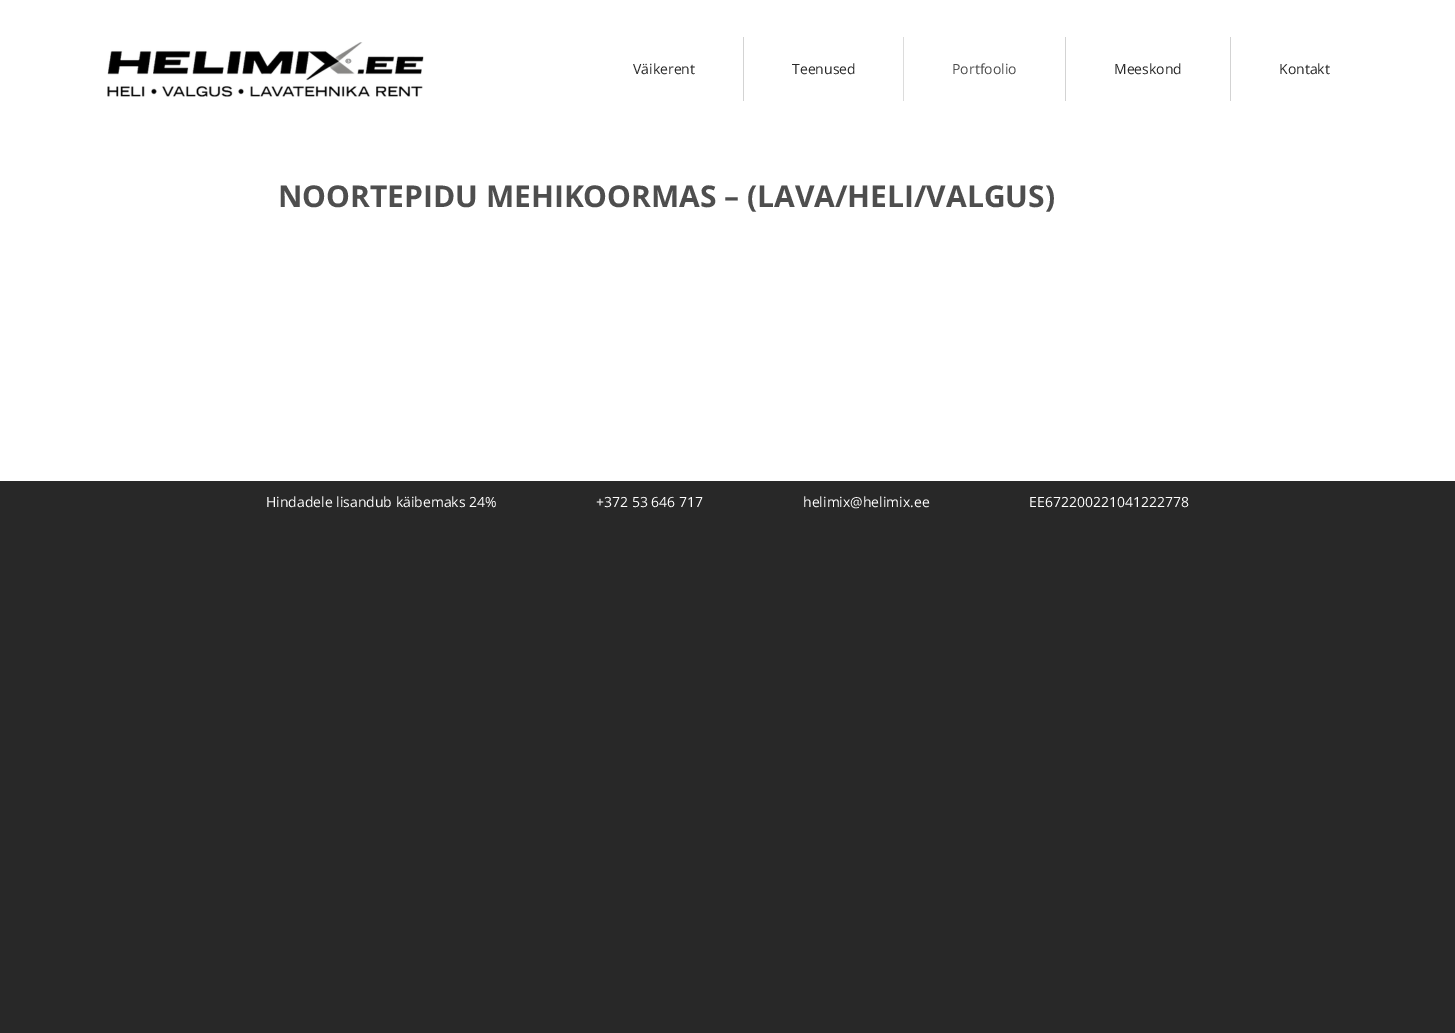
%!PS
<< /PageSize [1455 1033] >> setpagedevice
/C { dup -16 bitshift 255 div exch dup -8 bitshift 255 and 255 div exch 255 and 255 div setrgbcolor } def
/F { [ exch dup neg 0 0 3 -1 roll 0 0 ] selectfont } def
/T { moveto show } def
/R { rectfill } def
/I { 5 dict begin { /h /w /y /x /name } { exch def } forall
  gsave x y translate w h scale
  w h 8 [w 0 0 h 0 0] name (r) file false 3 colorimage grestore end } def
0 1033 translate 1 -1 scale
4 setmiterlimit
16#282828 C
0 0 1455 1033 R
16#FFFFFF C
0 0 1455 481 R
(1.rgb) 107 42 317 55 I
/OpenSans-Regular 14 F
16#282828 C
(Väikerent) 633 74 T
16#D3D3D3 C
743 37 1 64 R
16#282828 C
(Teenused) 792 74 T
16#DCDCDC C
903 37 1 64 R
16#4E4E4E C
(Portfoolio) 952 74 T
16#D3D3D3 C
1065 37 1 64 R
16#282828 C
(Meeskond) 1114 74 T
16#D3D3D3 C
1230 37 1 64 R
16#282828 C
(Kontakt) 1279 74 T
/OpenSans-Bold 30 F
16#4E4E4E C
(NOORTEPIDU MEHIKOORMAS – \(LAVA/HELI/VALGUS\)) 278 207 T
/OpenSans-Regular 14 F
16#FFFFFF C
(Hindadele lisandub käibemaks 24%) 266 507 T
(+372 53 646 717) 596 507 T
(helimix@helimix.ee) 803 507 T
(EE672200221041222778) 1029 507 T
showpage
